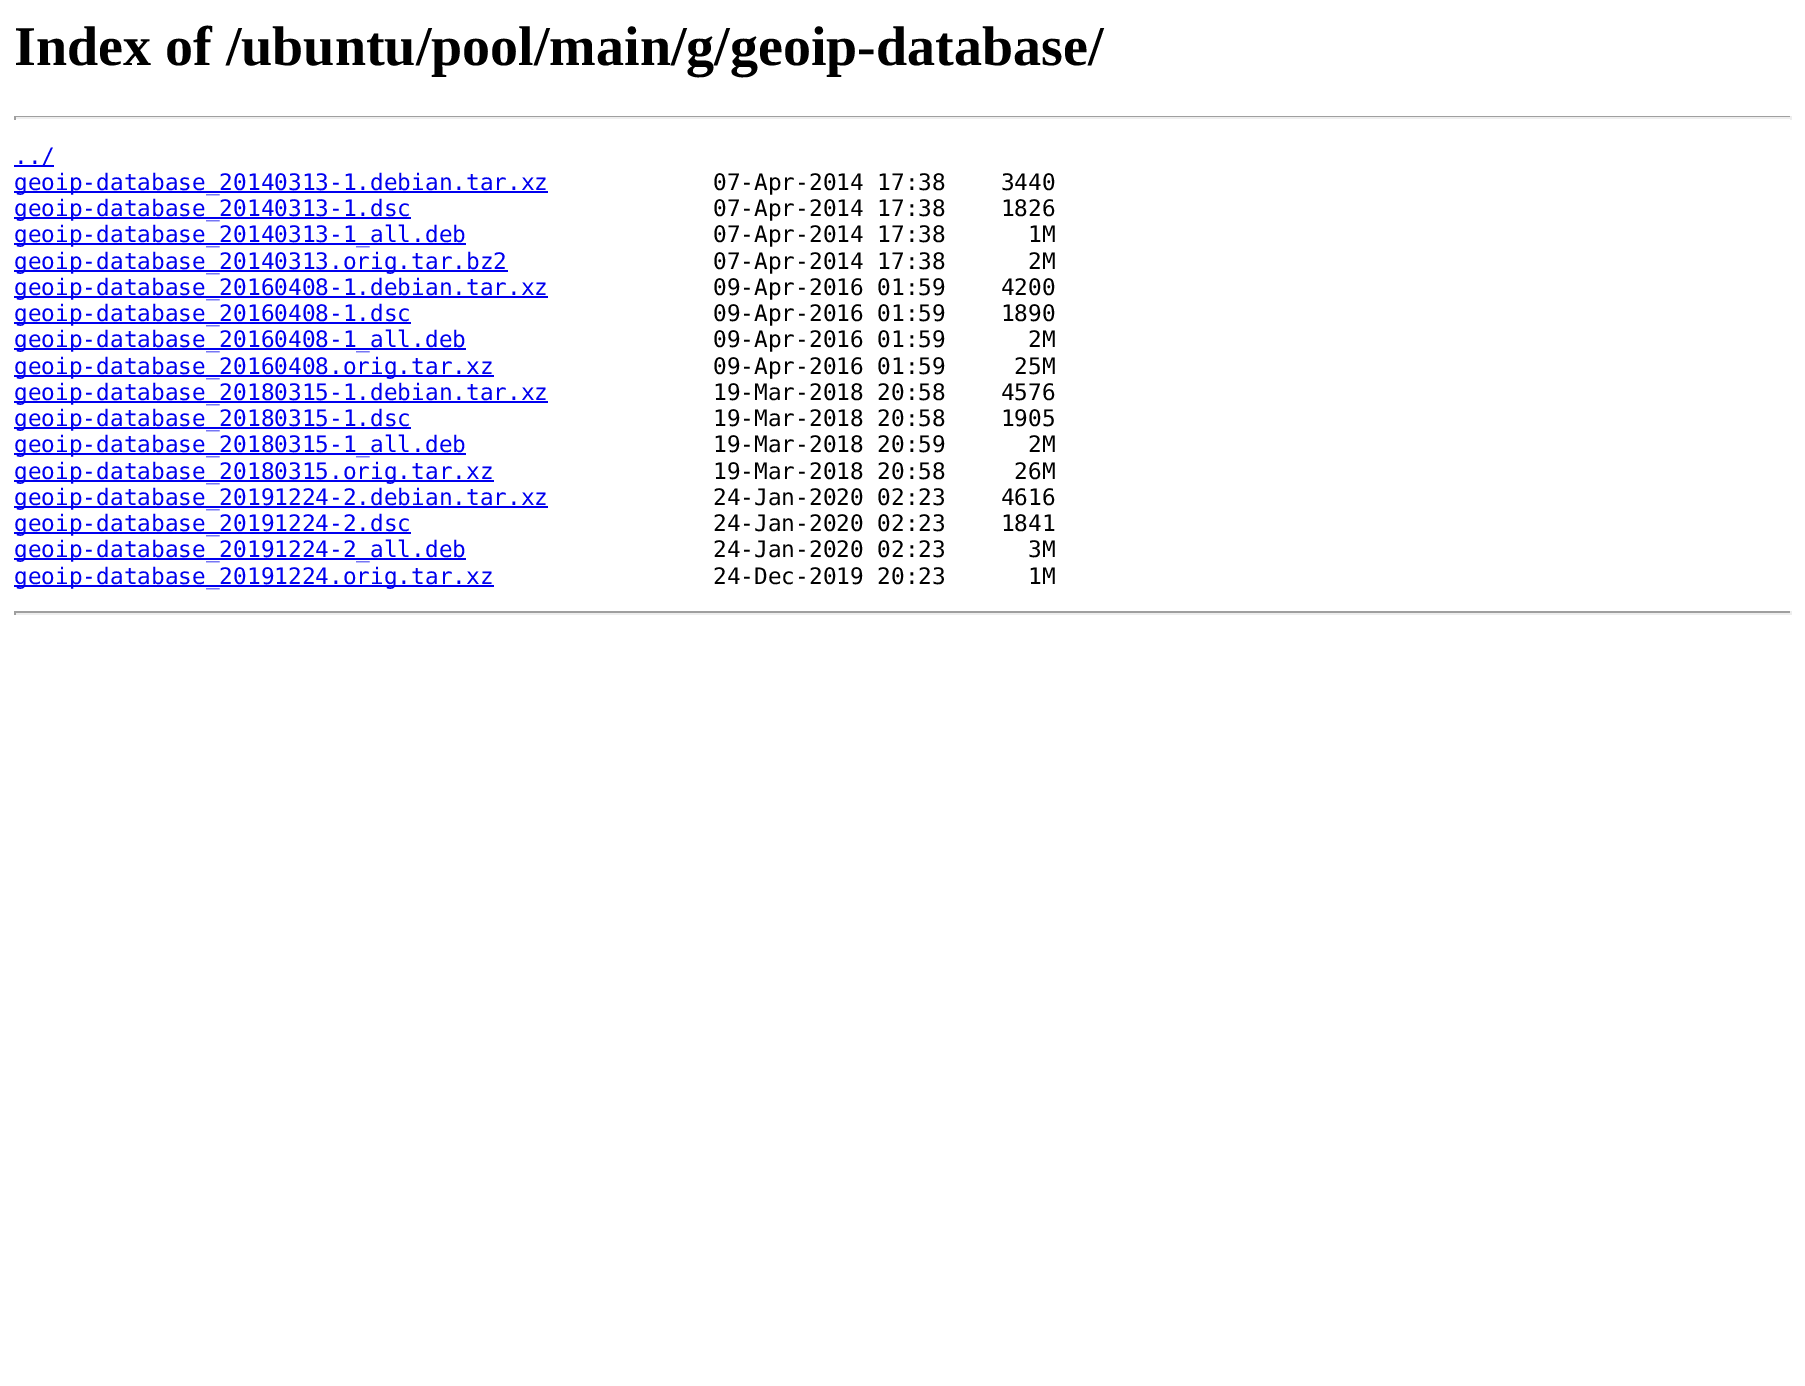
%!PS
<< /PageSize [1805 1386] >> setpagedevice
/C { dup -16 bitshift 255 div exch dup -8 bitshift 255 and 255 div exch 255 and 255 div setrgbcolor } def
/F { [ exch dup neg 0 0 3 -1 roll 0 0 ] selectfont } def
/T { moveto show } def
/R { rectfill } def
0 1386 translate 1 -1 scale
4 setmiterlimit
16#FFFFFF C
0 0 1805 1386 R
/LiberationSerif-Bold 56 F
16#000000 C
(Index of /ubuntu/pool/main/g/geoip-database/) 14 65 T
16#9F9F9F C
14 116 1778 1 R
16#EEEEEE C
1790 116 2 4 R
14 117 1778 2 R
16#9F9F9F C
14 116 2 4 R
16#0000EE C
14 165 40 2 R
/DejaVuSansMono-Regular 22.75 F
(../) 14 164 T
14 191 534 2 R
(geoip-database_20140313-1.debian.tar.xz) 14 190 T
16#000000 C
(07-Apr-2014 17:38    3440) 713 190 T
16#0000EE C
14 217 397 2 R
(geoip-database_20140313-1.dsc) 14 216 T
16#000000 C
(07-Apr-2014 17:38    1826) 713 216 T
16#0000EE C
14 243 452 2 R
(geoip-database_20140313-1_all.deb) 14 242 T
16#000000 C
(07-Apr-2014 17:38      1M) 713 242 T
16#0000EE C
14 270 494 2 R
(geoip-database_20140313.orig.tar.bz2) 14 269 T
16#000000 C
(07-Apr-2014 17:38      2M) 713 269 T
16#0000EE C
14 296 534 2 R
(geoip-database_20160408-1.debian.tar.xz) 14 295 T
16#000000 C
(09-Apr-2016 01:59    4200) 713 295 T
16#0000EE C
14 322 397 2 R
(geoip-database_20160408-1.dsc) 14 321 T
16#000000 C
(09-Apr-2016 01:59    1890) 713 321 T
16#0000EE C
14 348 452 2 R
(geoip-database_20160408-1_all.deb) 14 347 T
16#000000 C
(09-Apr-2016 01:59      2M) 713 347 T
16#0000EE C
14 375 480 2 R
(geoip-database_20160408.orig.tar.xz) 14 374 T
16#000000 C
(09-Apr-2016 01:59     25M) 713 374 T
16#0000EE C
14 401 534 2 R
(geoip-database_20180315-1.debian.tar.xz) 14 400 T
16#000000 C
(19-Mar-2018 20:58    4576) 713 400 T
16#0000EE C
14 427 397 2 R
(geoip-database_20180315-1.dsc) 14 426 T
16#000000 C
(19-Mar-2018 20:58    1905) 713 426 T
16#0000EE C
14 453 452 2 R
(geoip-database_20180315-1_all.deb) 14 452 T
16#000000 C
(19-Mar-2018 20:59      2M) 713 452 T
16#0000EE C
14 480 480 2 R
(geoip-database_20180315.orig.tar.xz) 14 479 T
16#000000 C
(19-Mar-2018 20:58     26M) 713 479 T
16#0000EE C
14 506 534 2 R
(geoip-database_20191224-2.debian.tar.xz) 14 505 T
16#000000 C
(24-Jan-2020 02:23    4616) 713 505 T
16#0000EE C
14 532 397 2 R
(geoip-database_20191224-2.dsc) 14 531 T
16#000000 C
(24-Jan-2020 02:23    1841) 713 531 T
16#0000EE C
14 558 452 2 R
(geoip-database_20191224-2_all.deb) 14 557 T
16#000000 C
(24-Jan-2020 02:23      3M) 713 557 T
16#0000EE C
14 585 480 2 R
(geoip-database_20191224.orig.tar.xz) 14 584 T
16#000000 C
(24-Dec-2019 20:23      1M) 713 584 T
16#9F9F9F C
14 611 1778 2 R
16#EEEEEE C
1790 611 2 4 R
14 613 1778 2 R
16#9F9F9F C
14 611 2 4 R
showpage
